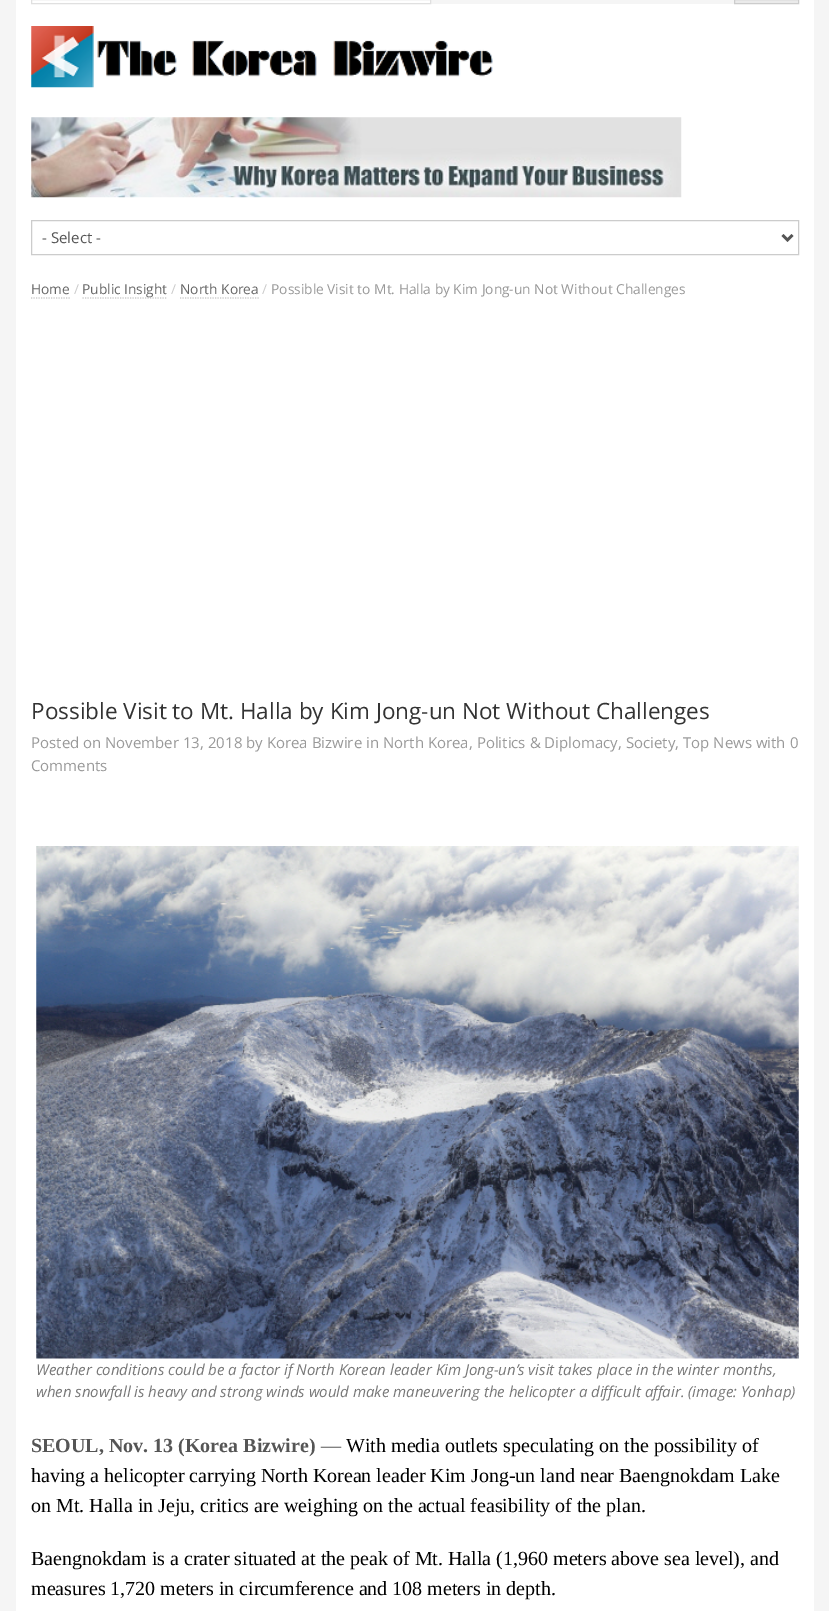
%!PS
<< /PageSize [829 1611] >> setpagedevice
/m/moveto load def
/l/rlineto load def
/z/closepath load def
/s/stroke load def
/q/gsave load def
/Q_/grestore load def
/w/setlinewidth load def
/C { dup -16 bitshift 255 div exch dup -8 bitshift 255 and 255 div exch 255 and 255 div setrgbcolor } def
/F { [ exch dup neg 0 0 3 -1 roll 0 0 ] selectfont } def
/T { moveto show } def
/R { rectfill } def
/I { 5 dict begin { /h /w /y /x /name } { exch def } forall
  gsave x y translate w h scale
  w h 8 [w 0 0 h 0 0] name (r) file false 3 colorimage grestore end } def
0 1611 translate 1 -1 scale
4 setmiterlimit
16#F5F5F5 C
0 0 829 1611 R
16#FFFFFF C
16 0 798 1611 R
16#F5F5F5 C
431 0 303 4 R
16#E0E0E0 C
31.5 -.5 399 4 rectstroke
q 734 0 m 65 0 l 0 3 l -65 0 l z clip newpath
<< /ShadingType 2 /ColorSpace /DeviceRGB /Coords [766 -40 766 2.5] /Extend [true true] /Function << /FunctionType 2 /Domain [0 1] /C0 [.98 .98 .98] /C1 [.918 .918 .918] /N 1 >> >> shfill Q_
16#CCCCCC C
734.5 -.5 64 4 rectstroke
(1.rgb) 31 26 462 62 I
(2.rgb) 31 117 651 81 I
31.5 220.5 767 34 rectstroke
16#555555 C
2.5 w
782.5 235 m 5 5 l 5 -5 l s
/OpenSans-Regular 15 F
(- Select -) 42 243 T
/OpenSans-Regular 13.75 F
16#666666 C
(Home) 31 294 T
16#CCCCCC C
1.2 w
[1.25 1.25] 0 setdash
31 298 m 39 0 l s
(/) 74 294 T
82.5 298 m 85 0 l s
16#666666 C
(Public Insight) 82 294 T
16#CCCCCC C
(/) 171 294 T
16#666666 C
(North Korea) 180 294 T
16#CCCCCC C
180 298 m 79 0 l s
(/) 262 294 T
16#999999 C
(Possible Visit to Mt. Halla by Kim Jong-un Not Without Challenges) 271 294 T
/OpenSans-Regular 22.5 F
16#333333 C
(Possible Visit to Mt. Halla by Kim Jong-un Not Without Challenges) 31 719 T
/OpenSans-Regular 15 F
16#999999 C
(Posted on November 13, 2018 by Korea Bizwire in North Korea, Politics & Diplomacy, Society, Top News with 0) 31 748 T
(Comments) 31 771 T
(3.rgb) 36 846 763 513 I
/OpenSans-Italic 15 F
16#777777 C
(Weather conditions could be a factor if North Korean leader Kim Jong-un’s visit takes place in the winter months,) 36 1375 T
(when snowfall is heavy and strong winds would make maneuvering the helicopter a difficult affair. \(image: Yonhap\)) 36 1397 T
/LiberationSerif-Bold 20 F
16#555555 C
(SEOUL, Nov. 13 \(Korea Bizwire\)) 31 1452 T
/LiberationSerif-Regular 20 F
(—) 321 1452 T
16#000000 C
(With media outlets speculating on the possibility of) 346 1452 T
(having a helicopter carrying North Korean leader Kim Jong-un land near Baengnokdam Lake) 31 1482 T
(on Mt. Halla in Jeju, critics are weighing on the actual feasibility of the plan.) 31 1512 T
(Baengnokdam is a crater situated at the peak of Mt. Halla \(1,960 meters above sea level\), and) 31 1565 T
(measures 1,720 meters in circumference and 108 meters in depth.) 31 1595 T
showpage
